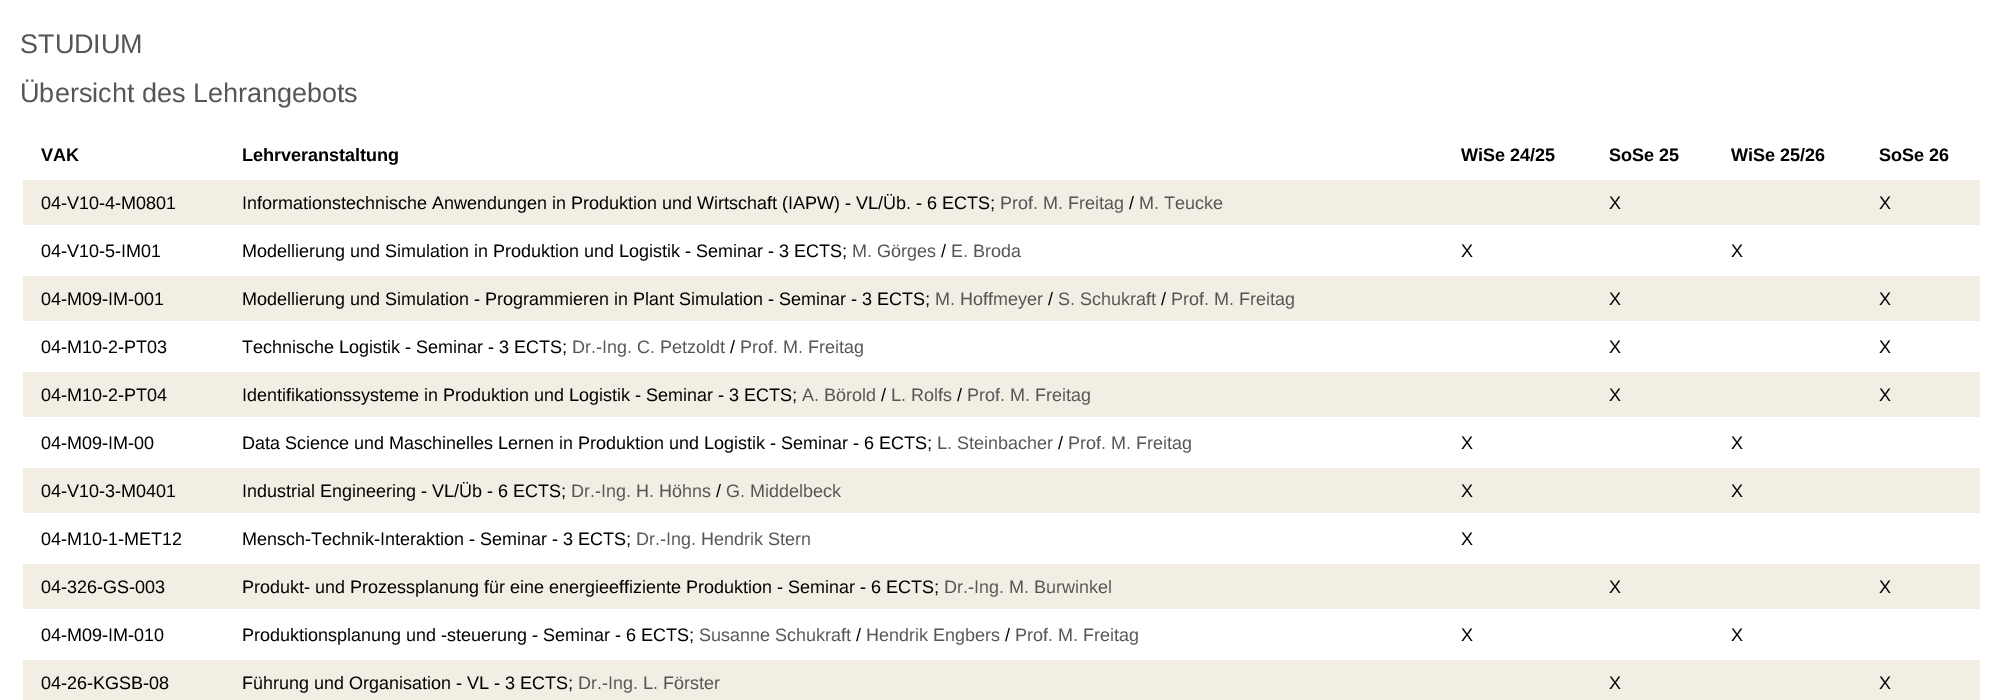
%!PS
<< /PageSize [2002 700] >> setpagedevice
/C { dup -16 bitshift 255 div exch dup -8 bitshift 255 and 255 div exch 255 and 255 div setrgbcolor } def
/F { [ exch dup neg 0 0 3 -1 roll 0 0 ] selectfont } def
/T { moveto show } def
/R { rectfill } def
0 700 translate 1 -1 scale
4 setmiterlimit
16#FFFFFF C
0 0 2002 700 R
/LiberationSans-Regular 27 F
16#565656 C
(STUDIUM) 20 53 T
(Übersicht des Lehrangebots) 20 102 T
/LiberationSans-Bold 18 F
16#000000 C
(VAK) 41 161 T
(Lehrveranstaltung) 242 161 T
(WiSe 24/25) 1461 161 T
(SoSe 25) 1609 161 T
(WiSe 25/26) 1731 161 T
(SoSe 26) 1879 161 T
16#F3EEE4 C
23 180 1957 45 R
/LiberationSans-Regular 18 F
16#000000 C
(04-V10-4-M0801) 41 209 T
(Informationstechnische Anwendungen in Produktion und Wirtschaft \(IAPW\) - VL/Üb. - 6 ECTS;) 242 209 T
16#565656 C
(Prof. M. Freitag) 1000 209 T
16#000000 C
(/) 1129 209 T
16#565656 C
(M. Teucke) 1139 209 T
16#000000 C
(X) 1609 209 T
(X) 1879 209 T
(04-V10-5-IM01) 41 257 T
(Modellierung und Simulation in Produktion und Logistik - Seminar - 3 ECTS;) 242 257 T
16#565656 C
(M. Görges) 852 257 T
16#000000 C
(/) 941 257 T
16#565656 C
(E. Broda) 951 257 T
16#000000 C
(X) 1461 257 T
(X) 1731 257 T
16#F3EEE4 C
23 276 1957 45 R
16#000000 C
(04-M09-IM-001) 41 305 T
(Modellierung und Simulation - Programmieren in Plant Simulation - Seminar - 3 ECTS;) 242 305 T
16#565656 C
(M. Hoffmeyer) 935 305 T
16#000000 C
(/) 1048 305 T
16#565656 C
(S. Schukraft) 1058 305 T
16#000000 C
(/) 1161 305 T
16#565656 C
(Prof. M. Freitag) 1171 305 T
16#000000 C
(X) 1609 305 T
(X) 1879 305 T
(04-M10-2-PT03) 41 353 T
(Technische Logistik - Seminar - 3 ECTS;) 242 353 T
16#565656 C
(Dr.-Ing. C. Petzoldt) 572 353 T
16#000000 C
(/) 730 353 T
16#565656 C
(Prof. M. Freitag) 740 353 T
16#000000 C
(X) 1609 353 T
(X) 1879 353 T
16#F3EEE4 C
23 372 1957 45 R
16#000000 C
(04-M10-2-PT04) 41 401 T
(Identifikationssysteme in Produktion und Logistik - Seminar - 3 ECTS;) 242 401 T
16#565656 C
(A. Börold) 802 401 T
16#000000 C
(/) 881 401 T
16#565656 C
(L. Rolfs) 891 401 T
16#000000 C
(/) 957 401 T
16#565656 C
(Prof. M. Freitag) 967 401 T
16#000000 C
(X) 1609 401 T
(X) 1879 401 T
(04-M09-IM-00) 41 449 T
(Data Science und Maschinelles Lernen in Produktion und Logistik - Seminar - 6 ECTS;) 242 449 T
16#565656 C
(L. Steinbacher) 937 449 T
16#000000 C
(/) 1058 449 T
16#565656 C
(Prof. M. Freitag) 1068 449 T
16#000000 C
(X) 1461 449 T
(X) 1731 449 T
16#F3EEE4 C
23 468 1957 45 R
16#000000 C
(04-V10-3-M0401) 41 497 T
(Industrial Engineering - VL/Üb - 6 ECTS;) 242 497 T
16#565656 C
(Dr.-Ing. H. Höhns) 571 497 T
16#000000 C
(/) 716 497 T
16#565656 C
(G. Middelbeck) 726 497 T
16#000000 C
(X) 1461 497 T
(X) 1731 497 T
(04-M10-1-MET12) 41 545 T
(Mensch-Technik-Interaktion - Seminar - 3 ECTS;) 242 545 T
16#565656 C
(Dr.-Ing. Hendrik Stern) 636 545 T
16#000000 C
(X) 1461 545 T
16#F3EEE4 C
23 564 1957 45 R
16#000000 C
(04-326-GS-003) 41 593 T
(Produkt- und Prozessplanung für eine energieeffiziente Produktion - Seminar - 6 ECTS;) 242 593 T
16#565656 C
(Dr.-Ing. M. Burwinkel) 944 593 T
16#000000 C
(X) 1609 593 T
(X) 1879 593 T
(04-M09-IM-010) 41 641 T
(Produktionsplanung und -steuerung - Seminar - 6 ECTS;) 242 641 T
16#565656 C
(Susanne Schukraft) 699 641 T
16#000000 C
(/) 856 641 T
16#565656 C
(Hendrik Engbers) 866 641 T
16#000000 C
(/) 1005 641 T
16#565656 C
(Prof. M. Freitag) 1015 641 T
16#000000 C
(X) 1461 641 T
(X) 1731 641 T
16#F3EEE4 C
23 660 1957 40 R
16#000000 C
(04-26-KGSB-08) 41 689 T
(Führung und Organisation - VL - 3 ECTS;) 242 689 T
16#565656 C
(Dr.-Ing. L. Förster) 578 689 T
16#000000 C
(X) 1609 689 T
(X) 1879 689 T
showpage
